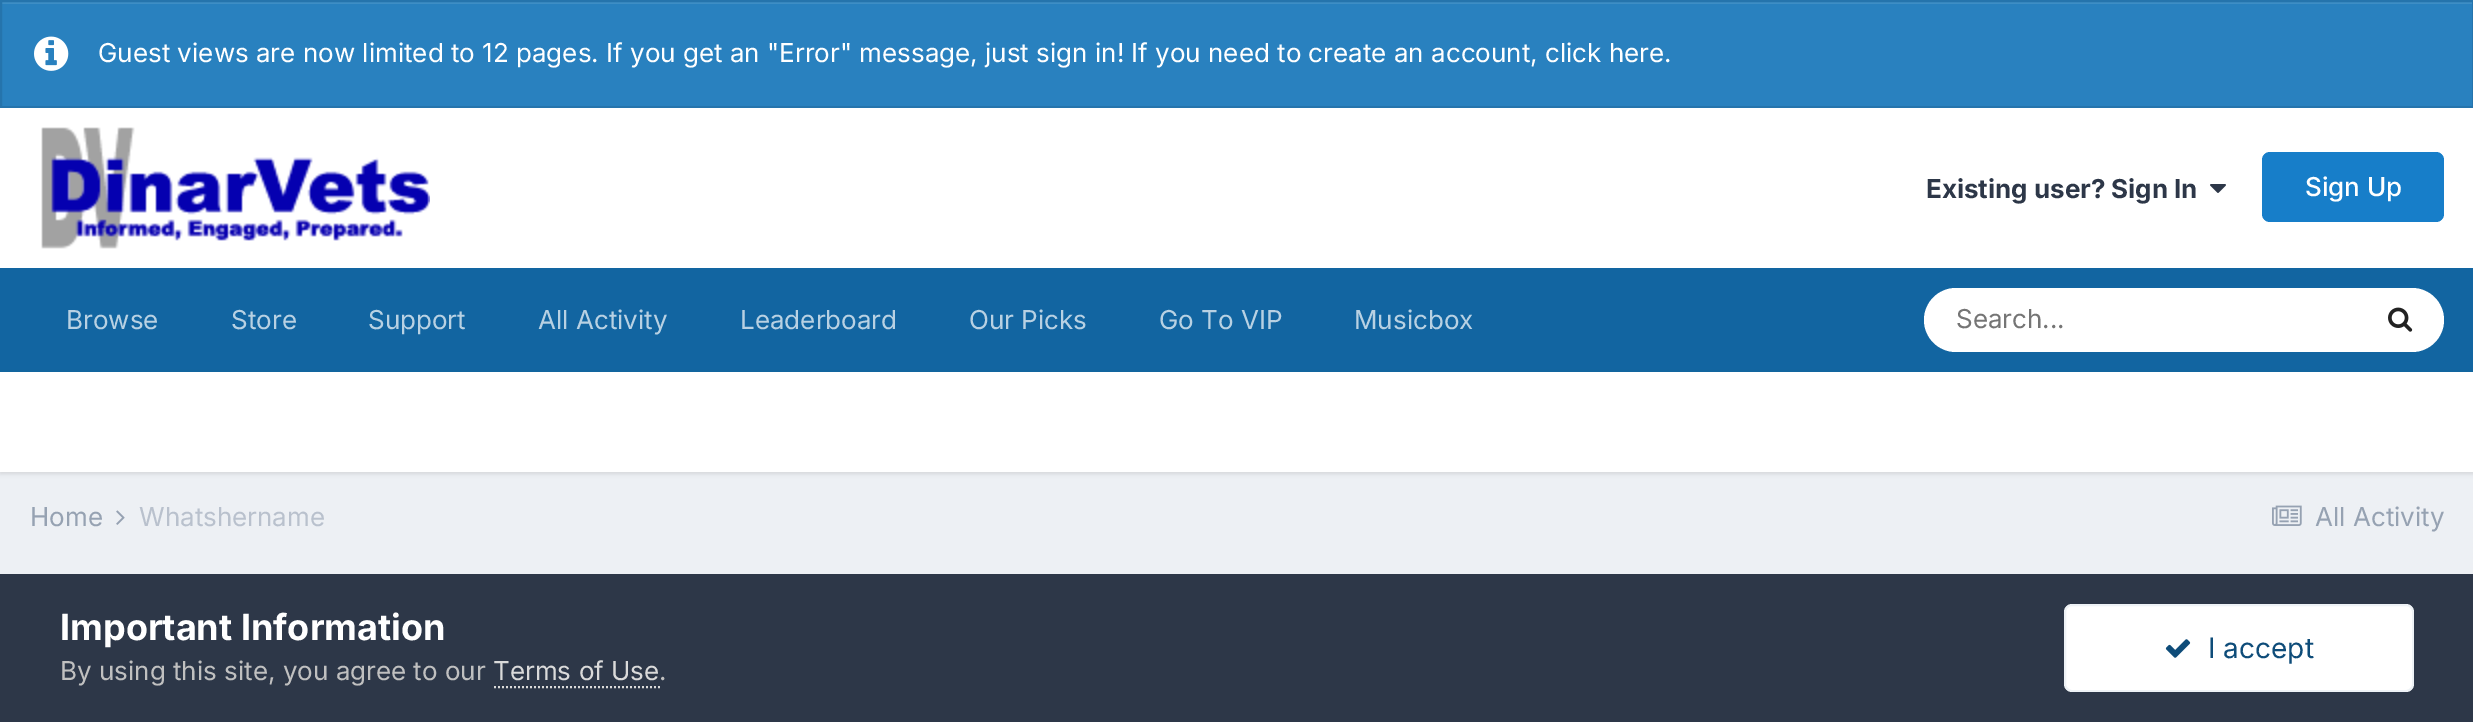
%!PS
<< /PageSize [2473 722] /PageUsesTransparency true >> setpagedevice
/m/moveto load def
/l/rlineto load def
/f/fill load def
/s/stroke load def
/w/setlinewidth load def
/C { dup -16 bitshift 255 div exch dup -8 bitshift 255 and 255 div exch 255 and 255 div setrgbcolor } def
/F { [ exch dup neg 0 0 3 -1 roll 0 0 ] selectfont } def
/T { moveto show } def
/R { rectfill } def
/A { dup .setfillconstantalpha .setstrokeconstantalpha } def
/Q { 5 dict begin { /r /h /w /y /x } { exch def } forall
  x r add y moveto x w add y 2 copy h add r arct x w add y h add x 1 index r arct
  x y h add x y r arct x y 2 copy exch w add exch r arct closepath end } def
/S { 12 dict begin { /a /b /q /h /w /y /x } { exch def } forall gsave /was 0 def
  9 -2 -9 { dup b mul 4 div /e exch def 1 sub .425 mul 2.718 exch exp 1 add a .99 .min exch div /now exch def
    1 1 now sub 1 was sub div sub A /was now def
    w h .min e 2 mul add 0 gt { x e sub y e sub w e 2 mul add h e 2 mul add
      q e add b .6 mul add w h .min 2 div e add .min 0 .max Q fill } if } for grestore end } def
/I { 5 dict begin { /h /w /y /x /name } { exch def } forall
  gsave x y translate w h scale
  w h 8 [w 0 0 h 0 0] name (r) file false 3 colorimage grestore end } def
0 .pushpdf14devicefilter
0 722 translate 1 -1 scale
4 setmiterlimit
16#EDF0F4 C
0 0 2473 722 R
16#2981BF C
2 4 2470 102 R
16#3E8EC5 C
2 2 2470 2 R
16#2574AC C
2 w
1 1 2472 106 rectstroke
(1.rgb) 34 36 35 35 I
/Inter-Regular 26 F
16#FFFFFF C
(Guest views are now limited to 12 pages. If you get an "Error" message, just sign in! If you need to create an account, click here.) 98 62 T
0 108 2473 160 R
(2.rgb) 41 127 389 122 I
/Inter-Bold 26 F
16#2D3748 C
(Existing user? Sign In) 1926 198 T
(3.rgb) 2210 184 16 9 I
16#177EC9 C
2262 152 182 70 8 Q f
/Inter-Medium 26 F
16#FFFFFF C
(Sign Up) 2305 196 T
16#1265A1 C
0 268 2473 104 R
/Inter-Regular 26 F
16#B8D1E3 C
(Browse) 66 329 T
(Store) 231 329 T
(Support) 368 329 T
(All Activity) 538 329 T
(Leaderboard) 740 329 T
(Our Picks) 969 329 T
(Go To VIP) 1159 329 T
(Musicbox) 1354 329 T
16#FFFFFF C
1924 288 520 64 32 Q f
16#757575 C
(Search...) 1956 328 T
(4.rgb) 2388 307 25 25 I
16#000000 C
0 374 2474 100 0 2 .1 S
16#FFFFFF C
0 372 2473 100 R
16#96A2B2 C
(Home) 30 526 T
(5.rgb) 116 510 9 15 I
16#B9C1CD C
(Whatshername) 139 526 T
(6.rgb) 2272 505 30 21 I
16#96A2B2 C
(All Activity) 2315 526 T
16#2D3748 C
0 574 2473 148 R
/Inter-Bold 36 F
16#FFFFFF C
(Important Information) 60 640 T
/Inter-Regular 26 F
16#C0C0C0 C
(By using this site, you agree to our) 60 680 T
16#DADADA C
(Terms of Use) 493 680 T
[2 2] 0 setdash
494 687 m 166 0 l s
16#C0C0C0 C
(.) 659 680 T
16#FFFFFF C
2064 604 350 88 8 Q f
0.07 A
16#0E4C79 C
[] 0 setdash
2065 605 348 86 7 Q s
1 A
(7.rgb) 2165 639 26 19 I
/Inter-Regular 28 F
(I accept) 2208 658 T
.poppdf14devicefilter showpage
